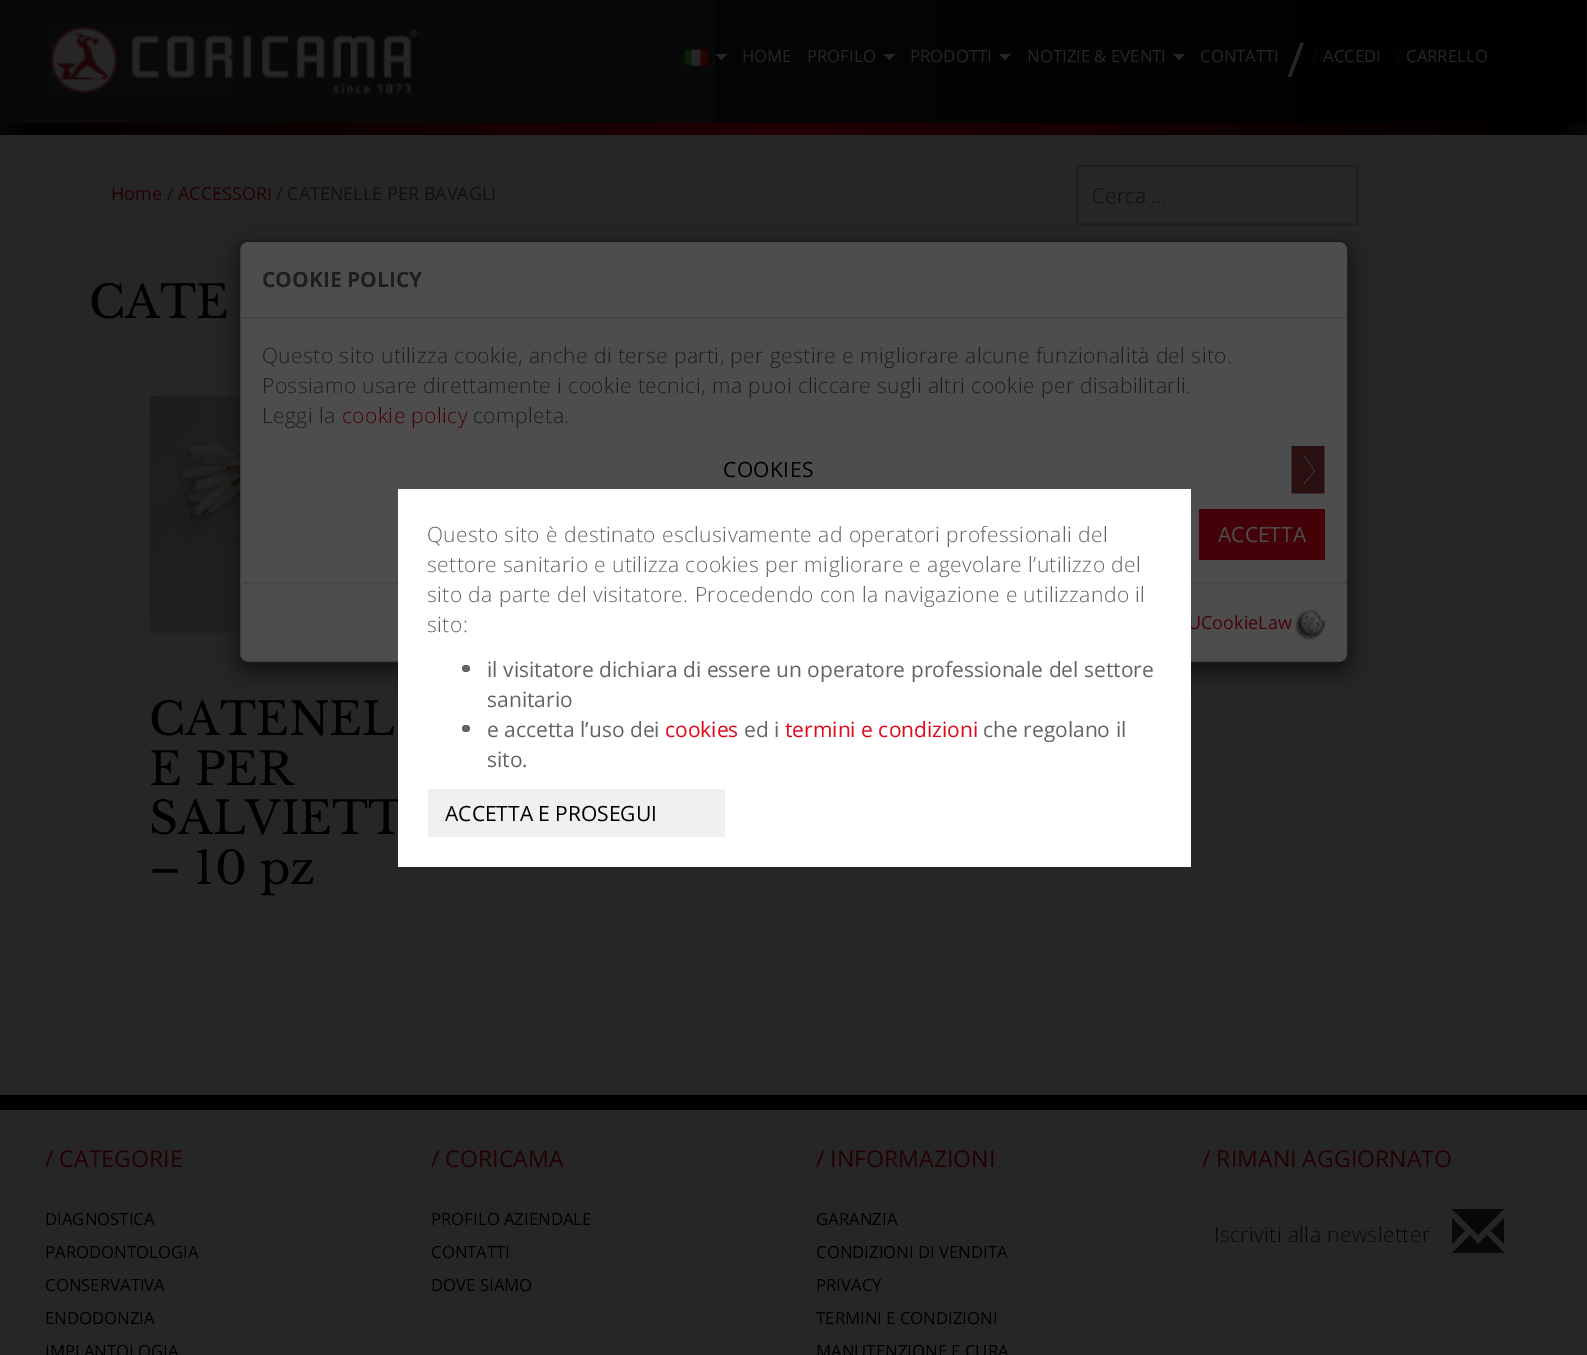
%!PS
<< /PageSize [1587 1355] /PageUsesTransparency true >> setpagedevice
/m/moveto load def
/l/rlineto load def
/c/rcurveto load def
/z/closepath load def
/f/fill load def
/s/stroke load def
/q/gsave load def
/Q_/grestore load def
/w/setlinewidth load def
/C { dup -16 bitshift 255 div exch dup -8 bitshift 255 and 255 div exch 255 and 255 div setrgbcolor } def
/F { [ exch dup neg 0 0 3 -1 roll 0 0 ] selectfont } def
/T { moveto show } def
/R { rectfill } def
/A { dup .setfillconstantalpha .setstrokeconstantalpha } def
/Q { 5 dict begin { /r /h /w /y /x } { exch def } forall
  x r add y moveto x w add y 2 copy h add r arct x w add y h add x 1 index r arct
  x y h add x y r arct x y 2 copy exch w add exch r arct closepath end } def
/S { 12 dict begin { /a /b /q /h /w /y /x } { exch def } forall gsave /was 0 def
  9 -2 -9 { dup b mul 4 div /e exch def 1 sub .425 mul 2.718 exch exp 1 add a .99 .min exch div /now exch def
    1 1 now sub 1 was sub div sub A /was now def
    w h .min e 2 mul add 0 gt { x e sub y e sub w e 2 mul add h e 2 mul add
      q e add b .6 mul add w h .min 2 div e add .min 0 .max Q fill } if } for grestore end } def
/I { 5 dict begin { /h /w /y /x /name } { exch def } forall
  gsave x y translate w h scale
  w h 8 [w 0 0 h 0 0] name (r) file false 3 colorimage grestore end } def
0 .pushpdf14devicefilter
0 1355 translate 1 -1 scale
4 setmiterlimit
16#262626 C
0 0 1587 1355 R
16#080808 C
0 0 1587 123 R
q 715 0 m 871 0 l 0 123 l -871 0 l z clip newpath
<< /ShadingType 2 /ColorSpace /DeviceRGB /Coords [1.5 62 1586 61] /Extend [true true] /Function << /FunctionType 2 /Domain [0 1] /C0 [.039 .039 .039] /C1 [0 0 0] /N 1 >> >> shfill Q_
(1.rgb) 50 25 369 69 I
(2.rgb) 684 49 24 17 I
16#262626 C
715.5 54 m 12 0 l -6 6 l z f
/OpenSans-Regular 16.75 F
(HOME) 742 62 T
(PROFILO) 807 62 T
883.5 54 m 12 0 l -6 6 l z f
(PRODOTTI) 910 62 T
999 54 m 12 0 l -6 6 l z f
(NOTIZIE & EVENTI) 1027 62 T
1173 54 m 12 0 l -6 6 l z f
(CONTATTI) 1200 62 T
/OpenSans-Regular 48 F
(/) 1287 77 T
/OpenSans-Regular 16.75 F
16#220104 C
(/) 1312 62 T
16#262626 C
(ACCEDI) 1323 62 T
16#220104 C
(/) 1396 62 T
16#262626 C
(CARRELLO) 1406 62 T
q 0 123 m 1587 0 l 0 12 l -1587 0 l z clip newpath
<< /ShadingType 2 /ColorSpace /DeviceRGB /Coords [0 129 1587 129] /Extend [true true] /Function << /FunctionType 3 /Domain [0 1] /Functions [<< /FunctionType 2 /Domain [0 1] /C0 [.031 .031 .031] /C1 [.008 0 0] /N 1 >> << /FunctionType 2 /Domain [0 1] /C0 [.008 0 0] /C1 [.133 .004 .016] /N 1 >> << /FunctionType 2 /Domain [0 1] /C0 [.133 .004 .016] /C1 [.004 0 0] /N 1 >> << /FunctionType 2 /Domain [0 1] /C0 [.004 0 0] /C1 [.016 .016 .016] /N 1 >> << /FunctionType 2 /Domain [0 1] /C0 [.016 .016 .016] /C1 [.031 .031 .031] /N 1 >>] /Bounds [.02 .5 .98 .99] /Encode [0 1 0 1 0 1 0 1 0 1] >> >> shfill Q_
/OpenSans-Regular 18 F
16#220104 C
(Home) 111 200 T
16#0F0F0F C
(/) 167 200 T
16#220104 C
(ACCESSORI) 178 200 T
16#0F0F0F C
(/ CATENELLE PER BAVAGLI) 276 200 T
16#1F1F1F C
2 w
1077 166 280 58 rectstroke
/OpenSans-Light 21 F
16#0F0F0F C
(Cerca …) 1092 203 T
/LibreBaskerville-Regular 45 F
16#000000 C
(CATE) 89 318 T
(3.rgb) 150 394 90 240 I
(CATENEL) 149 735 T
(E PER) 149 785 T
(SALVIETT) 149 834 T
(– 10 pz) 149 884 T
q
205 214 m 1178 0 l 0 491 l -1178 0 l z 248 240 m 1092 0 l 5 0 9 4 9 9 c 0 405 l 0 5 -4 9 -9 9 c -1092 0 l -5 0 -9 -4 -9 -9 c 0 -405 l 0 -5 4 -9 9 -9 c z eoclip newpath
239 248 1110 423 9 11 .5 S
Q_
16#4D4D4D C
240 242 1107 420 8 Q f
0.2 A
16#000000 C
240 241 1108 421 8 Q s
1 A
16#454545 C
240 317 1107 2 R
/OpenSans-Bold 21 F
16#1E1E1F C
(COOKIE POLICY) 262 287 T
/OpenSans-Light 21 F
262 363 m .42 0 (Questo sito utilizza cookie, anche di terse parti, per gestire e migliorare alcune funzionalità del sito.) ashow
262 393 m .42 0 (Possiamo usare direttamente i cookie tecnici, ma puoi cliccare sugli altri cookie per disabilitarli.) ashow
262 423 m .42 0 (Leggi la) ashow
16#440208 C
342 423 m .42 0 (cookie policy) ashow
16#1E1E1F C
473 423 m .42 0 (completa.) ashow
(4.rgb) 1291 446 34 48 I
/OpenSans-Regular 21 F
16#000000 C
723 477 m .42 0 (COOKIES) ashow
16#440208 C
1199 509 126 51 R
16#4D4D4D C
(ACCETTA) 1218 542 T
16#454545 C
240 582 1107 2 R
/OpenSans-Regular 18 F
16#440208 C
(UCookieLaw) 1188 629 T
(5.rgb) 1295 609 30 31 I
16#FFFFFF C
398 489 793 378 R
/OpenSans-Light 21 F
16#636466 C
427 542 m .42 0 (Questo sito è destinato esclusivamente ad operatori professionali del) ashow
427 572 m .42 0 (settore sanitario e utilizza cookies per migliorare e agevolare l’utilizzo del) ashow
427 602 m .42 0 (sito da parte del visitatore. Procedendo con la navigazione e utilizzando il) ashow
427 632 m .42 0 (sito:) ashow
462 665 8 7 3.5 Q f
/OpenSans-Regular 21 F
(il visitatore dichiara di essere un operatore professionale del settore) 487 677 T
(sanitario) 487 707 T
462 725 8 7 3.5 Q f
(e accetta l’uso dei) 487 737 T
16#E2061B C
(cookies) 665 737 T
16#636466 C
(ed i) 744 737 T
16#E2061B C
(termini e condizioni) 785 737 T
16#636466 C
(che regolano il) 983 737 T
(sito.) 487 767 T
16#F0F0F0 C
428 789 297 48 R
16#000000 C
(ACCETTA E PROSEGUI) 445 821 T
0 1095 1587 15 R
/OpenSans-Regular 23.1 F
16#220104 C
(/ CATEGORIE) 45 1167 T
/OpenSans-Regular 16.75 F
16#000000 C
(DIAGNOSTICA) 45 1225 T
(PARODONTOLOGIA) 45 1258 T
(CONSERVATIVA) 45 1291 T
(ENDODONZIA) 45 1324 T
(IMPLANTOLOGIA) 45 1357 T
/OpenSans-Regular 23.1 F
16#220104 C
(/ CORICAMA) 431 1167 T
/OpenSans-Regular 16.75 F
16#000000 C
(PROFILO AZIENDALE) 431 1225 T
(CONTATTI) 431 1258 T
(DOVE SIAMO) 431 1291 T
/OpenSans-Regular 23.1 F
16#220104 C
(/ INFORMAZIONI) 816 1167 T
/OpenSans-Regular 16.75 F
16#000000 C
(GARANZIA) 816 1225 T
(CONDIZIONI DI VENDITA) 816 1258 T
(PRIVACY) 816 1291 T
(TERMINI E CONDIZIONI) 816 1324 T
(MANUTENZIONE E CURA) 816 1357 T
/OpenSans-Regular 23.1 F
16#220104 C
(/ RIMANI AGGIORNATO) 1202 1167 T
/OpenSans-Light 21 F
16#080808 C
1214 1242 m .42 0 (Iscriviti alla newsletter) ashow
1452 1253 m 18 -18 l 8 9 l 9 -9 l 17 18 l z 1452 1244 m 0 -26 l 13 13 l z 1452 1209 m 26 26 l 26 -26 l z 1491 1231 m 13 -13 l 0 26 l z f
.poppdf14devicefilter showpage
